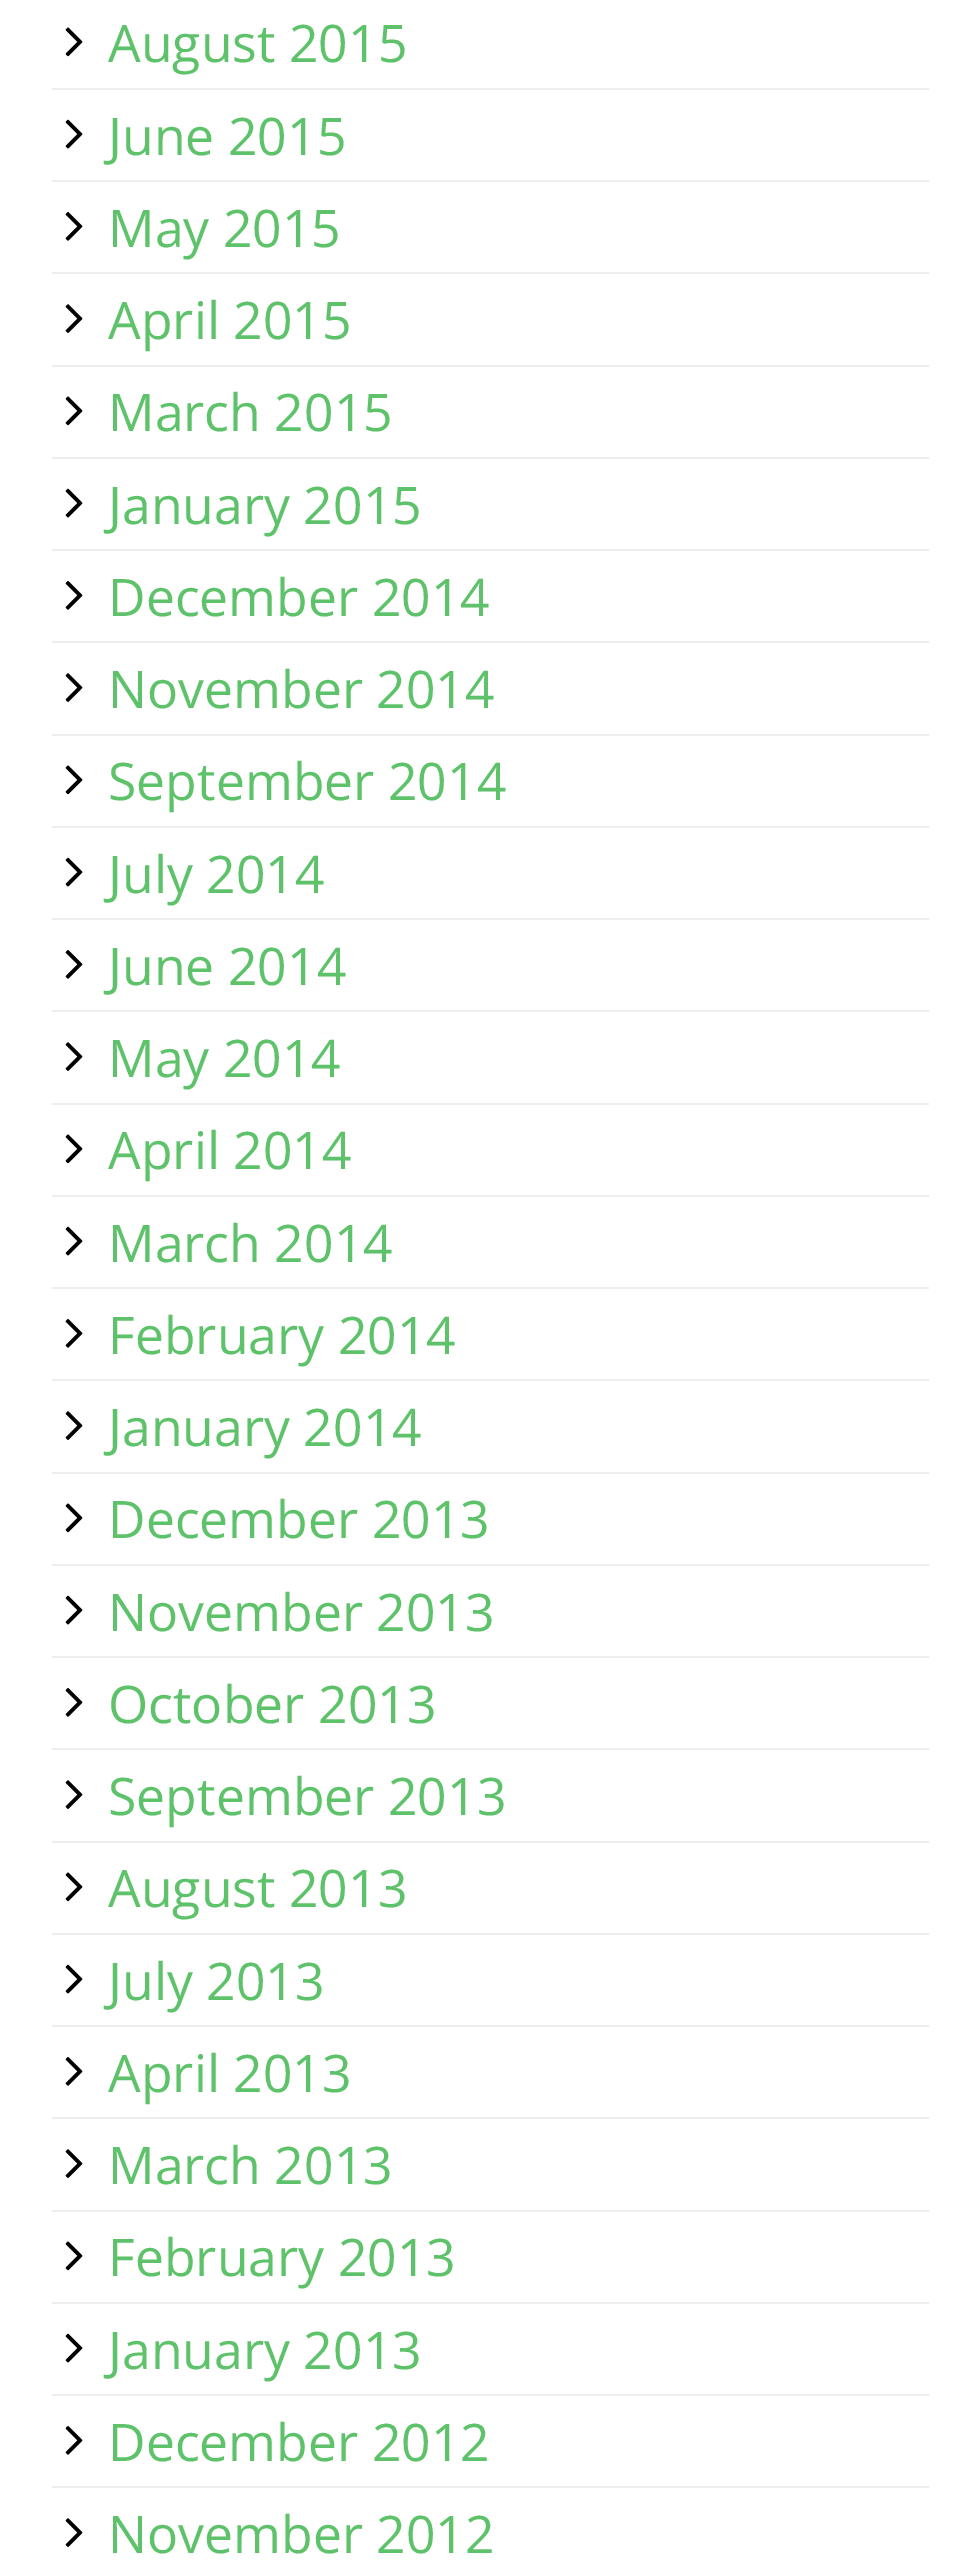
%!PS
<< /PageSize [979 2571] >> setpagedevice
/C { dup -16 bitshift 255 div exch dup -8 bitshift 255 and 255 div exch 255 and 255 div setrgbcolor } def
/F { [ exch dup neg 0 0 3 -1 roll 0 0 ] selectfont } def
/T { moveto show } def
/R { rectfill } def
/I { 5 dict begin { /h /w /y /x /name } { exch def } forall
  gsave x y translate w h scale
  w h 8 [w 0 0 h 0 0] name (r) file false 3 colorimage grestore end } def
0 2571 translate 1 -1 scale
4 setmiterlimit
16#FFFFFF C
0 0 979 2571 R
16#EEEEEE C
52 88 877 2 R
(1.rgb) 65 27 18 30 I
/OpenSans-Regular 51.75 F
16#5DC269 C
(August 2015) 108 62 T
16#EEEEEE C
52 180 877 2 R
(2.rgb) 65 119 18 30 I
16#5DC269 C
(June 2015) 108 155 T
16#EEEEEE C
52 272 877 2 R
(3.rgb) 65 212 18 29 I
16#5DC269 C
(May 2015) 108 247 T
16#EEEEEE C
52 365 877 2 R
(4.rgb) 65 304 18 29 I
16#5DC269 C
(April 2015) 108 339 T
16#EEEEEE C
52 457 877 2 R
(1.rgb) 65 396 18 30 I
16#5DC269 C
(March 2015) 108 431 T
16#EEEEEE C
52 549 877 2 R
(2.rgb) 65 488 18 30 I
16#5DC269 C
(January 2015) 108 524 T
16#EEEEEE C
52 641 877 2 R
(3.rgb) 65 581 18 29 I
16#5DC269 C
(December 2014) 108 616 T
16#EEEEEE C
52 734 877 2 R
(4.rgb) 65 673 18 29 I
16#5DC269 C
(November 2014) 108 708 T
16#EEEEEE C
52 826 877 2 R
(1.rgb) 65 765 18 30 I
16#5DC269 C
(September 2014) 108 800 T
16#EEEEEE C
52 918 877 2 R
(2.rgb) 65 857 18 30 I
16#5DC269 C
(July 2014) 108 893 T
16#EEEEEE C
52 1010 877 2 R
(3.rgb) 65 950 18 29 I
16#5DC269 C
(June 2014) 108 985 T
16#EEEEEE C
52 1103 877 2 R
(4.rgb) 65 1042 18 29 I
16#5DC269 C
(May 2014) 108 1077 T
16#EEEEEE C
52 1195 877 2 R
(1.rgb) 65 1134 18 30 I
16#5DC269 C
(April 2014) 108 1169 T
16#EEEEEE C
52 1287 877 2 R
(2.rgb) 65 1226 18 30 I
16#5DC269 C
(March 2014) 108 1262 T
16#EEEEEE C
52 1379 877 2 R
(3.rgb) 65 1319 18 29 I
16#5DC269 C
(February 2014) 108 1354 T
16#EEEEEE C
52 1472 877 2 R
(4.rgb) 65 1411 18 29 I
16#5DC269 C
(January 2014) 108 1446 T
16#EEEEEE C
52 1564 877 2 R
(1.rgb) 65 1503 18 30 I
16#5DC269 C
(December 2013) 108 1538 T
16#EEEEEE C
52 1656 877 2 R
(2.rgb) 65 1595 18 30 I
16#5DC269 C
(November 2013) 108 1631 T
16#EEEEEE C
52 1748 877 2 R
(3.rgb) 65 1688 18 29 I
16#5DC269 C
(October 2013) 108 1723 T
16#EEEEEE C
52 1841 877 2 R
(4.rgb) 65 1780 18 29 I
16#5DC269 C
(September 2013) 108 1815 T
16#EEEEEE C
52 1933 877 2 R
(1.rgb) 65 1872 18 30 I
16#5DC269 C
(August 2013) 108 1907 T
16#EEEEEE C
52 2025 877 2 R
(2.rgb) 65 1964 18 30 I
16#5DC269 C
(July 2013) 108 2000 T
16#EEEEEE C
52 2117 877 2 R
(3.rgb) 65 2057 18 29 I
16#5DC269 C
(April 2013) 108 2092 T
16#EEEEEE C
52 2210 877 2 R
(4.rgb) 65 2149 18 29 I
16#5DC269 C
(March 2013) 108 2184 T
16#EEEEEE C
52 2302 877 2 R
(1.rgb) 65 2241 18 30 I
16#5DC269 C
(February 2013) 108 2276 T
16#EEEEEE C
52 2394 877 2 R
(2.rgb) 65 2333 18 30 I
16#5DC269 C
(January 2013) 108 2369 T
16#EEEEEE C
52 2486 877 2 R
(3.rgb) 65 2426 18 29 I
16#5DC269 C
(December 2012) 108 2461 T
(4.rgb) 65 2518 18 29 I
(November 2012) 108 2553 T
showpage
